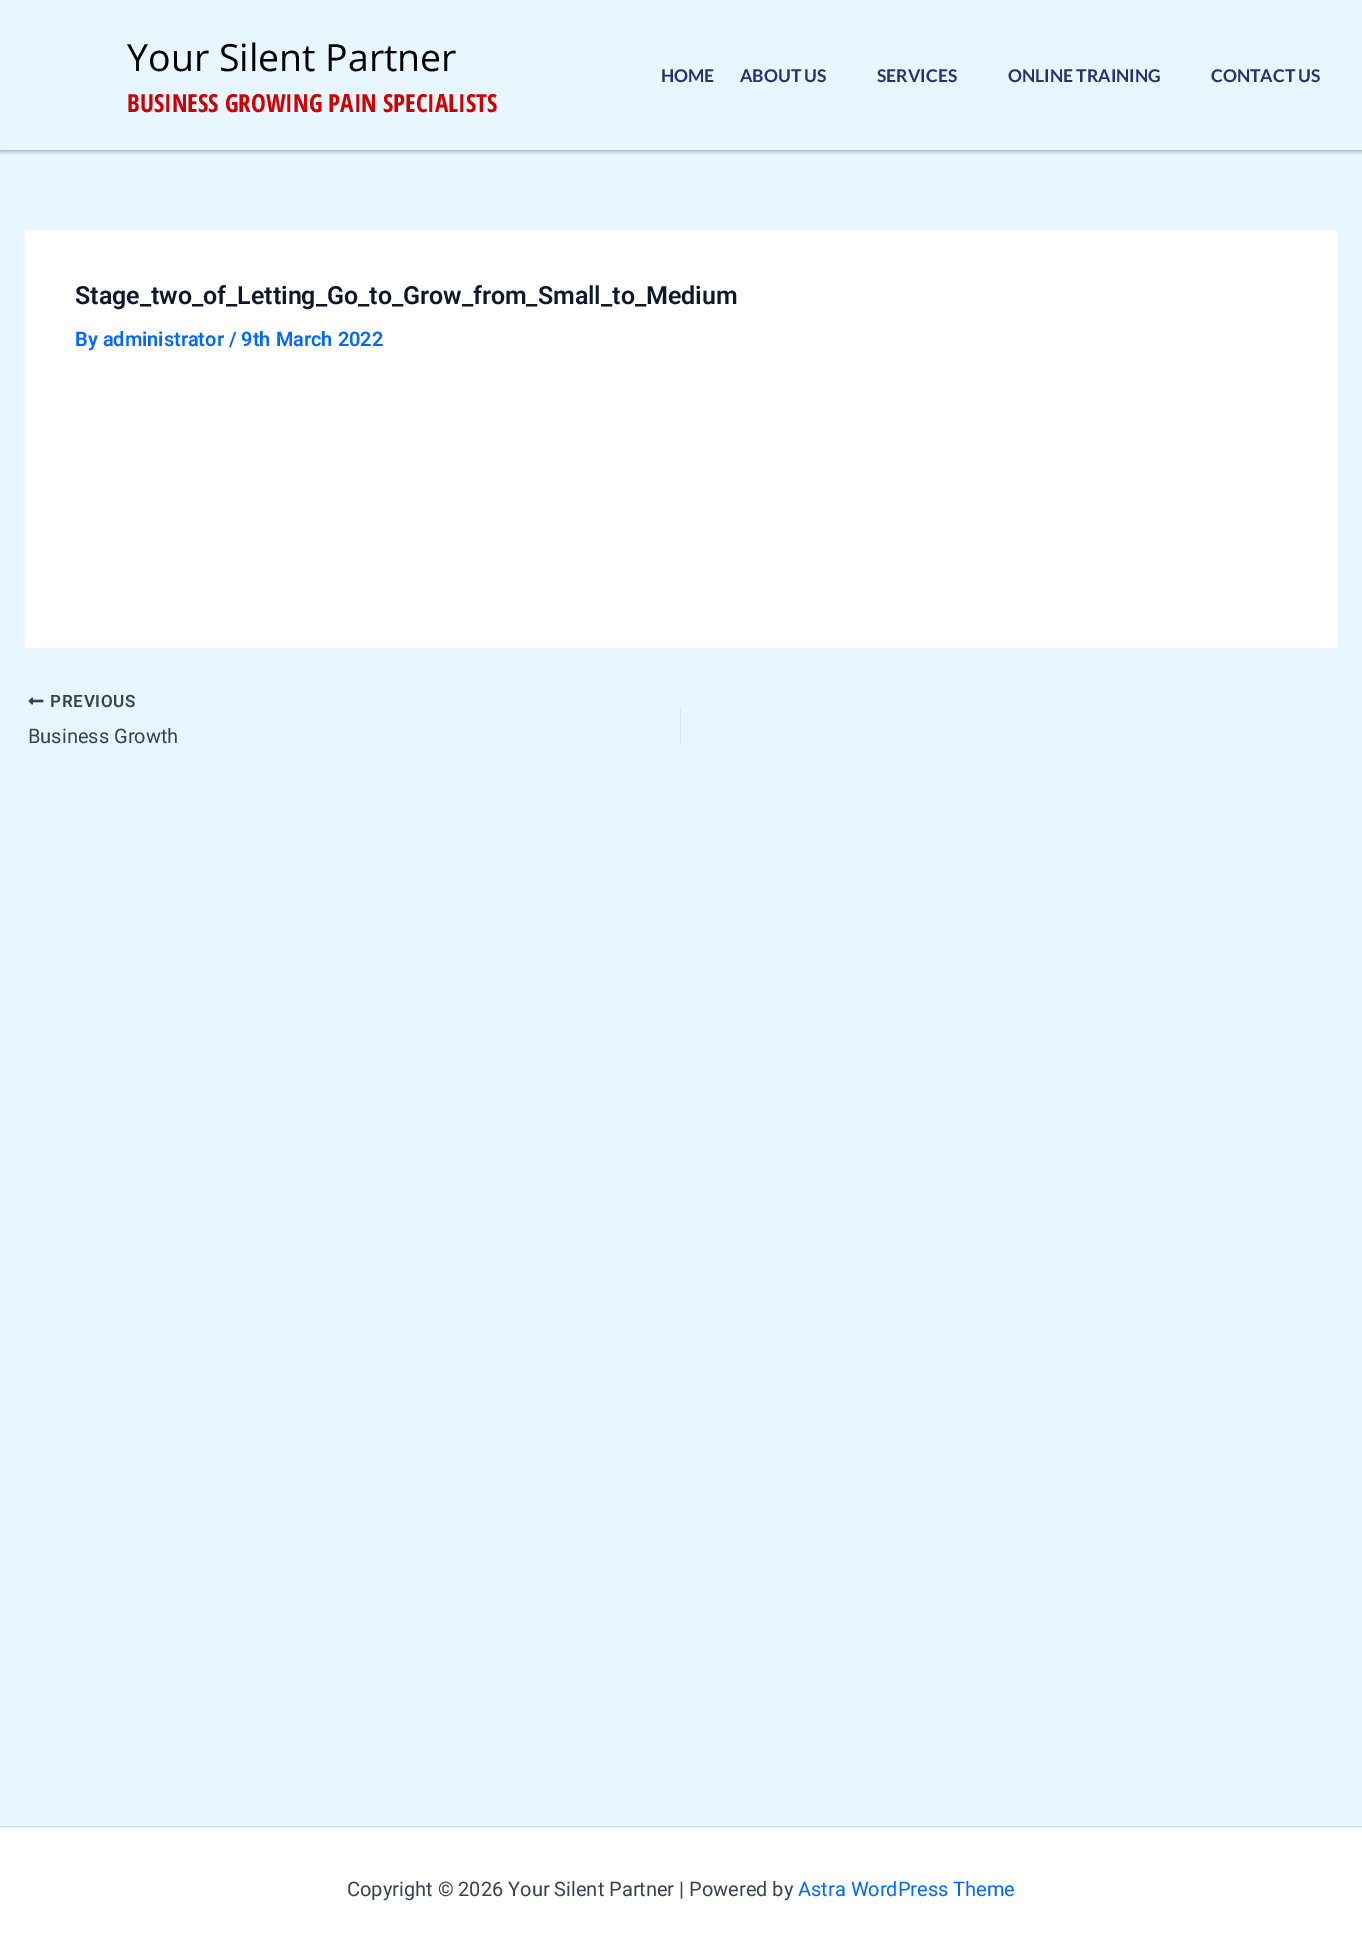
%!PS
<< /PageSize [1362 1952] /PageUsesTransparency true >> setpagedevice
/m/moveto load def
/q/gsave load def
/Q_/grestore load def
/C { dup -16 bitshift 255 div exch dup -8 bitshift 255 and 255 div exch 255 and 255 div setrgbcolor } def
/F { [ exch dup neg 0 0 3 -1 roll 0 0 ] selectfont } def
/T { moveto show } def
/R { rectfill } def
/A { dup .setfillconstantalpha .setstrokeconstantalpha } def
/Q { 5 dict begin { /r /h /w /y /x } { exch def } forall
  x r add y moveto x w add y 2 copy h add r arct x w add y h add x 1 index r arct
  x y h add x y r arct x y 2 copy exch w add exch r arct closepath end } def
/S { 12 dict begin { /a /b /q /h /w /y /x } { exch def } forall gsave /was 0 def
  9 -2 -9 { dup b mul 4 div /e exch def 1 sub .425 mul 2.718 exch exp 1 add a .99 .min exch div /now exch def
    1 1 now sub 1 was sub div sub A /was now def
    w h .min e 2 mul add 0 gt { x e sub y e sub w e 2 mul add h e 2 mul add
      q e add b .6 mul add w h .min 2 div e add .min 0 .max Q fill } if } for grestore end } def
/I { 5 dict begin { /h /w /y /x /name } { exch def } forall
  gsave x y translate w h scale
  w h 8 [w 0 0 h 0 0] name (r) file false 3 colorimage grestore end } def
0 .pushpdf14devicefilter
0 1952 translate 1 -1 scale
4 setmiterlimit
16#E7F6FF C
0 0 1362 1952 R
q
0 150 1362 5 rectclip
16#000000 C
0 0 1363 150 0 3 .5 S
Q_
/OpenSans-Regular 37.5 F
16#000000 C
(Your Silent Partner) 127 71 T
/OpenSansCondensed-Bold 25 F
16#CE0000 C
(BUSINESS GROWING PAIN SPECIALISTS) 127 112 T
/Lato-Bold 17.5 F
16#273171 C
(HOME) 661 82 T
(ABOUT US) 740 82 T
(SERVICES) 877 82 T
(ONLINE TRAINING) 1008 82 T
(CONTACT US) 1211 82 T
16#FFFFFF C
25 230 1313 418 R
/Roboto-SemiBold 25 F
16#0F172A C
(Stage_two_of_Letting_Go_to_Grow_from_Small_to_Medium) 75 304 T
/Roboto-SemiBold 20 F
16#0067FF C
(By administrator / 9th March 2022) 75 346 T
(1.rgb) 28 697 16 8 I
/Roboto-SemiBold 17 F
16#364151 C
50 707 m .75 0 (PREVIOUS) ashow
/Roboto-Regular 20 F
(Business Growth) 28 743 T
16#E1E8ED C
680 708 1 37 R
16#FFFFFF C
0 1828 1362 124 R
16#D1DAE5 C
0 1826 1362 1 R
16#364151 C
(Copyright © 2026 Your Silent Partner | Powered by) 347 1896 T
16#0067FF C
(Astra WordPress Theme) 798 1896 T
.poppdf14devicefilter showpage
